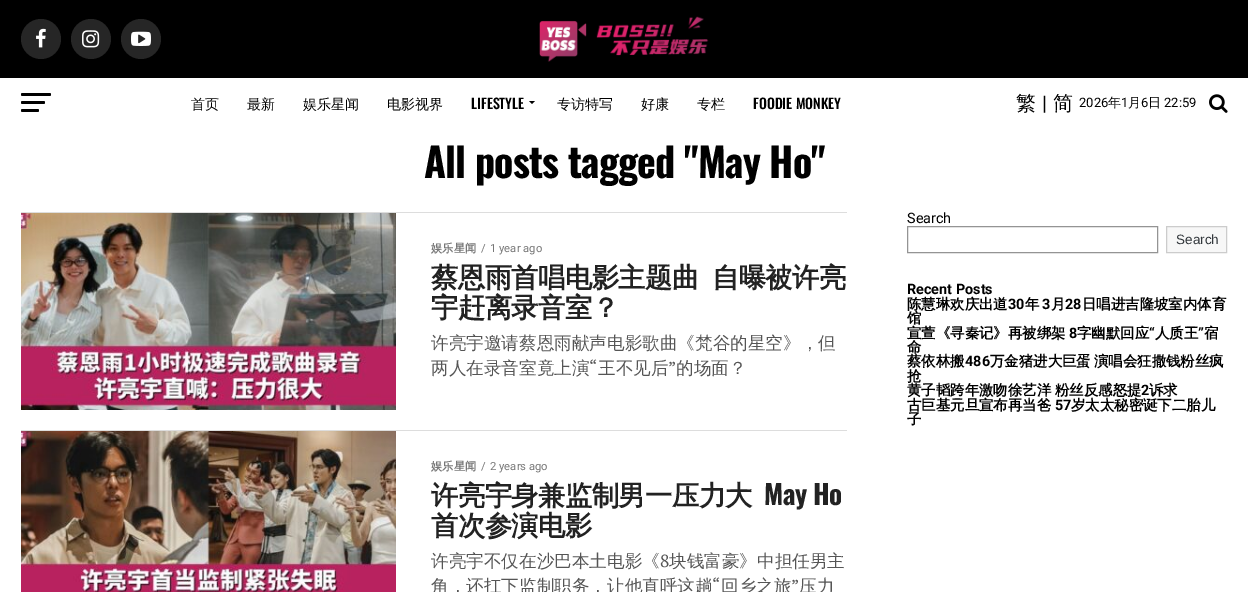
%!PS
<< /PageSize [1248 592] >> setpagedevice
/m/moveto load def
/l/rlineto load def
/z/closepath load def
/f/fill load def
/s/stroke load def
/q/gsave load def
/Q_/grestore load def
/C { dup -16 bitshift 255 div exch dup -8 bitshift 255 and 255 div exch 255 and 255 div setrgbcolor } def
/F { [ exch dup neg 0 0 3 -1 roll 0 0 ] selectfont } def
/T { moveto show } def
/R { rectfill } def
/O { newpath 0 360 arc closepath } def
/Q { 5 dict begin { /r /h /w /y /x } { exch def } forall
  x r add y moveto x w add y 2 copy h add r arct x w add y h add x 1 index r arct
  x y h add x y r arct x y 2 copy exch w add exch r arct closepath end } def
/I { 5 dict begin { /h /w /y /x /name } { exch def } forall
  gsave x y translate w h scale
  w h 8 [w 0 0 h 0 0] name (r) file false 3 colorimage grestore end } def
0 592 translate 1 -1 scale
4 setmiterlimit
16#FFFFFF C
0 0 1248 592 R
16#000000 C
0 0 1248 78 R
16#262626 C
41 39 20 O f
(1.rgb) 36 28 10 20 I
91 39 20 O f
(2.rgb) 82 30 18 18 I
141 39 20 O f
(3.rgb) 131 31 20 15 I
(4.rgb) 539 16 170 46 I
16#000000 C
21 93 30 3 1.5 Q f
21 101 24 3 1.5 Q f
21 109 18 3 1.5 Q f
/WenQuanYiZenHei-Medium 14 F
(首页) 191 109 T
(最新) 247 109 T
(娱乐星闻) 303 109 T
(电影视界) 387 109 T
/Oswald-Medium 14 F
(LIFESTYLE) 471 109 T
529 101 m 6 0 l -3 3 l z f
/WenQuanYiZenHei-Medium 14 F
(专访特写) 557 109 T
(好康) 641 109 T
(专栏) 697 109 T
/Oswald-Medium 14 F
(FOODIE MONKEY) 753 109 T
/WenQuanYiZenHei-Medium 20 F
(繁) 1016 110 T
/Roboto-Regular 20 F
(|) 1042 110 T
/WenQuanYiZenHei-Medium 20 F
(简) 1053 110 T
/Roboto-Regular 13 F
(2026) 1079 107 T
/WenQuanYiZenHei-Medium 13 F
(年) 1108 107 T
/Roboto-Regular 13 F
(1) 1121 107 T
/WenQuanYiZenHei-Medium 13 F
(月) 1128 107 T
/Roboto-Regular 13 F
(6) 1141 107 T
/WenQuanYiZenHei-Medium 13 F
(日) 1148 107 T
/Roboto-Regular 13 F
(22:59) 1164 107 T
(5.rgb) 1209 94 19 19 I
/Oswald-Bold 40 F
424 178 m -.8 0 (All posts tagged "May Ho") ashow
16#DDDDDD C
21 212 826 1 R
(6.rgb) 21 213 375 197 I
/WenQuanYiZenHei-Bold 11.25 F
16#777777 C
(娱乐星闻) 431 252 T
/Roboto-Regular 11.25 F
(/) 481 252 T
(1 year ago) 490 252 T
/WenQuanYiZenHei-Bold 27.25 F
16#222222 C
431 287 m -1 0 32 -.5 0 (蔡恩雨首唱电影主题曲  自曝被许亮) awidthshow
431 317 m -.5 0 (宇赶离录音室？) ashow
/WenQuanYiZenHei-Medium 17.6 F
16#555555 C
(许亮宇邀请蔡恩雨献声电影歌曲《梵谷的星空》，但) 431 349 T
(两人在录音室竟上演) 431 374 T
/PTSerif-Regular 17.6 F
(“) 589 374 T
/WenQuanYiZenHei-Medium 17.6 F
(王不见后) 598 374 T
/PTSerif-Regular 17.6 F
(”) 668 374 T
/WenQuanYiZenHei-Medium 17.6 F
(的场面？) 676 374 T
16#DDDDDD C
21 430 826 1 R
(7.rgb) 21 431 375 161 I
/WenQuanYiZenHei-Bold 11.25 F
16#777777 C
(娱乐星闻) 431 470 T
/Roboto-Regular 11.25 F
(/) 481 470 T
(2 years ago) 490 470 T
/WenQuanYiZenHei-Bold 27.25 F
16#222222 C
431 505 m -.5 0 (许亮宇身兼监制男一压力大) ashow
/Oswald-Bold 27.25 F
764 505 m -.5 0 (May Ho) ashow
/WenQuanYiZenHei-Bold 27.25 F
431 535 m -.5 0 (首次参演电影) ashow
/WenQuanYiZenHei-Medium 17.6 F
16#555555 C
(许亮宇不仅在沙巴本土电影《) 431 567 T
/PTSerif-Regular 17.6 F
(8) 660 567 T
/WenQuanYiZenHei-Medium 17.6 F
(块钱富豪》中担任男主) 669 567 T
(角，还扛下监制职务，让他直呼这趟) 431 592 T
/PTSerif-Regular 17.6 F
(“) 712 592 T
/WenQuanYiZenHei-Medium 17.6 F
(回乡之旅) 721 592 T
/PTSerif-Regular 17.6 F
(”) 791 592 T
/WenQuanYiZenHei-Medium 17.6 F
(压力) 799 592 T
/Roboto-Regular 14.4 F
16#000000 C
(Search) 907 223 T
16#949494 C
907.5 226.5 250 26 rectstroke
16#F7F7F7 C
1166.5 226.5 m 60 0 l 0 26 l -60 0 l z q f Q_
16#CCCCCC C
s
/LiberationSans-Regular 13.5 F
16#32373C C
(Search) 1176 244 T
/Roboto-Bold 14.4 F
16#000000 C
(Recent Posts) 907 294 T
/WenQuanYiZenHei-Bold 14.4 F
(陈慧琳欢庆出道) 907 309 T
/Roboto-Bold 14.4 F
(30) 1008 309 T
/WenQuanYiZenHei-Bold 14.4 F
(年) 1025 309 T
/Roboto-Bold 14.4 F
(3) 1042 309 T
/WenQuanYiZenHei-Bold 14.4 F
(月) 1051 309 T
/Roboto-Bold 14.4 F
(28) 1065 309 T
/WenQuanYiZenHei-Bold 14.4 F
(日唱进吉隆坡室内体育) 1082 309 T
(馆) 907 323 T
(宣萱《寻秦记》再被绑架) 907 338 T
/Roboto-Bold 14.4 F
(8) 1069 338 T
/WenQuanYiZenHei-Bold 14.4 F
(字幽默回应) 1077 338 T
/Roboto-Bold 14.4 F
(“) 1149 338 T
/WenQuanYiZenHei-Bold 14.4 F
(人质王) 1155 338 T
/Roboto-Bold 14.4 F
(”) 1198 338 T
/WenQuanYiZenHei-Bold 14.4 F
(宿) 1204 338 T
(命) 907 352 T
(蔡依林搬) 907 366 T
/Roboto-Bold 14.4 F
(486) 965 366 T
/WenQuanYiZenHei-Bold 14.4 F
(万金猪进大巨蛋) 990 366 T
(演唱会狂撒钱粉丝疯) 1094 366 T
(抢) 907 381 T
(黄子韬跨年激吻徐艺洋) 907 395 T
(粉丝反感怒提) 1055 395 T
/Roboto-Bold 14.4 F
(2) 1141 395 T
/WenQuanYiZenHei-Bold 14.4 F
(诉求) 1149 395 T
(古巨基元旦宣布再当爸) 907 410 T
/Roboto-Bold 14.4 F
(57) 1055 410 T
/WenQuanYiZenHei-Bold 14.4 F
(岁太太秘密诞下二胎儿) 1071 410 T
(子) 907 424 T
showpage
